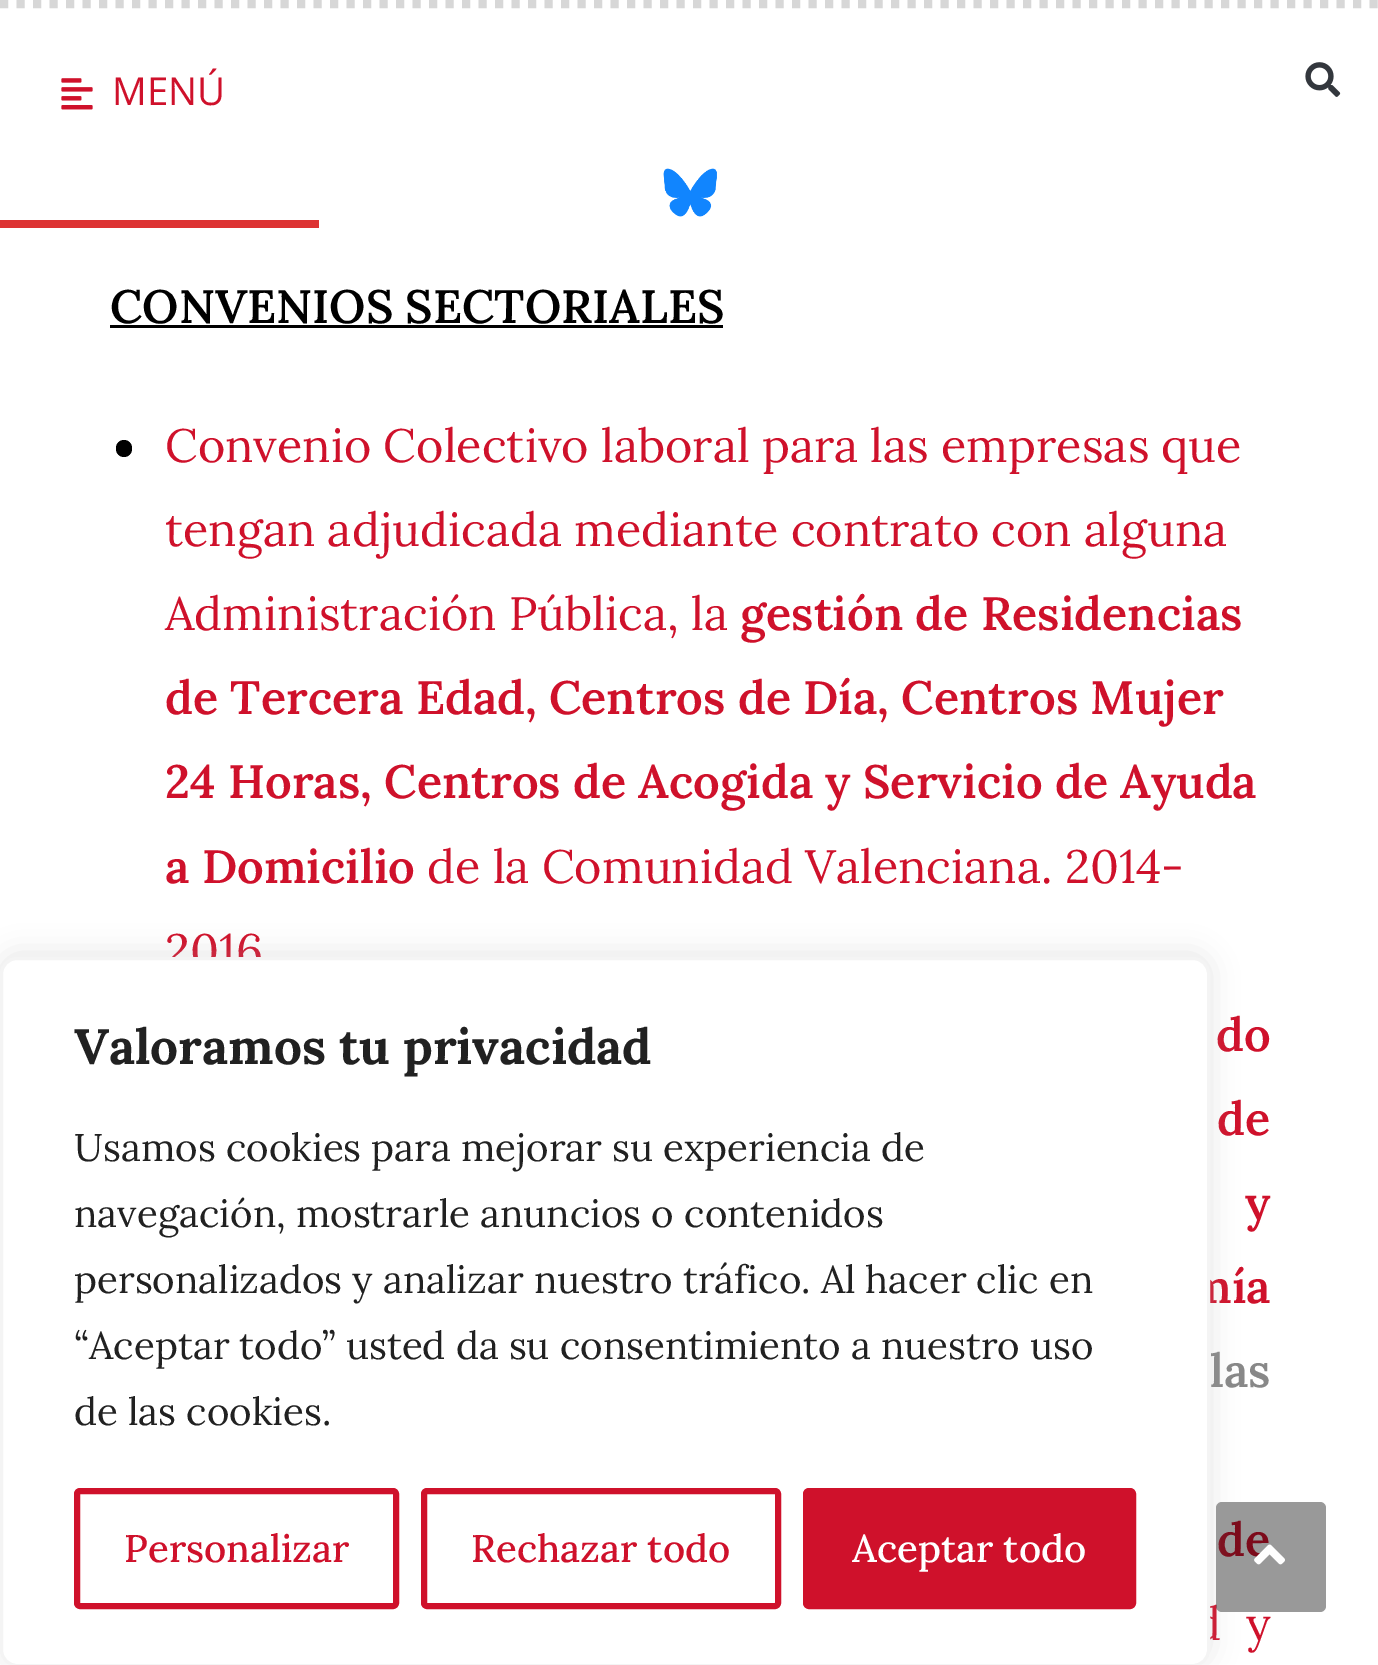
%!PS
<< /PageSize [1378 1665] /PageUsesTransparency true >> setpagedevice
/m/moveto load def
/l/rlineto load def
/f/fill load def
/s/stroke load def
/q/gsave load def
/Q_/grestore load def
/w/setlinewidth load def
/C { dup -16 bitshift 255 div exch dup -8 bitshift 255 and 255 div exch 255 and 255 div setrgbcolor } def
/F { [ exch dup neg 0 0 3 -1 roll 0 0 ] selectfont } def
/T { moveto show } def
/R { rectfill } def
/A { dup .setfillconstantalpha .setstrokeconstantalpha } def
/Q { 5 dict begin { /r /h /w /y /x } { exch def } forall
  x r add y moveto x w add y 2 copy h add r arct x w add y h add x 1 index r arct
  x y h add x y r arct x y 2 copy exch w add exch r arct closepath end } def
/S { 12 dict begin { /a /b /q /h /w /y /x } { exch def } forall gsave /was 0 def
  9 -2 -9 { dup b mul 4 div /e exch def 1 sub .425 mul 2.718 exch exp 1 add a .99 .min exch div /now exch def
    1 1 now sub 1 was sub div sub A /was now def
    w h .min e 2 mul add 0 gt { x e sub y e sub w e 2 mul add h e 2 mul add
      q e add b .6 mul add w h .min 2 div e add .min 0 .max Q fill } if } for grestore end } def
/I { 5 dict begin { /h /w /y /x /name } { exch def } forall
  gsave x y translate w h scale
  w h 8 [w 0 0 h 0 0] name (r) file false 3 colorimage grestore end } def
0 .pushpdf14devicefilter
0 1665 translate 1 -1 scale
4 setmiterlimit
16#FFFFFF C
0 0 1378 1665 R
16#D7D7D7 C
8.2 w
[8.25 8.25] 0 setdash
0 4 m 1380.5 0 l s
(1.rgb) 61 78 32 32 I
/OpenSans-Regular 38.5 F
16#CF112B C
(MENÚ) 112 105 T
(2.rgb) 1305 62 36 35 I
(3.rgb) 663 168 54 49 I
16#DD3333 C
0 220 319 8 R
/Lora-SemiBold 46.75 F
16#000000 C
(CONVENIOS SECTORIALES) 110 323 T
110 325 613 3 R
116 440 16 17 8 Q f
/Lora-Regular 46.75 F
16#CF112B C
(Convenio Colectivo laboral para las empresas que) 165 462 T
(tengan adjudicada mediante contrato con alguna) 165 546 T
(Administración Pública, la) 165 630 T
/Lora-SemiBold 46.75 F
(gestión de Residencias) 740 630 T
(de Tercera Edad, Centros de Día, Centros Mujer) 165 714 T
(24 Horas, Centros de Acogida y Servicio de Ayuda) 165 798 T
(a Domicilio) 165 883 T
/Lora-Regular 46.75 F
(de la Comunidad Valenciana. 2014-) 427 883 T
(2016) 165 967 T
/Lora-SemiBold 46.75 F
1216 1051 m 5 0 32 (do) widthshow
1217 1135 m 3 0 32 (de) widthshow
1245 1219 m 45 0 32 (y) widthshow
1189 1303 m 22 0 32 (mía) widthshow
16#888888 C
(las) 1210 1387 T
16#CF112B C
1217 1556 m 10 0 32 (de) widthshow
/Lora-Regular 46.75 F
1193 1640 m 13 0 32 (d y) widthshow
0.4 A
16#000000 C
1216 1502 110 110 6 Q f
1 A
16#ACABAB C
0 954 1210 710 17 14 .3 S
16#FFFFFF C
1.5 958.5 1207 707 15.5 Q q f Q_
16#F4F4F4 C
3 w
[] 0 setdash
s
/Lora-Bold 49.5 F
16#212121 C
(Valoramos tu privacidad) 74 1064 T
/Lora-Regular 38.5 F
(Usamos cookies para mejorar su experiencia de) 74 1161 T
(navegación, mostrarle anuncios o contenidos) 74 1227 T
(personalizados y analizar nuestro tráfico. Al hacer clic en) 74 1293 T
(“Aceptar todo” usted da su consentimiento a nuestro uso) 74 1359 T
(de las cookies.) 74 1425 T
16#CF112B C
6 w
77 1491 319 115 3 Q s
/Lora-Medium 38.5 F
(Personalizar) 124 1562 T
424 1491 354 115 3 Q s
(Rechazar todo) 471 1562 T
806 1491 327 115 3 Q q f Q_
s
16#FFFFFF C
(Aceptar todo) 852 1562 T
(4.rgb) 1254 1544 31 21 I
.poppdf14devicefilter showpage
